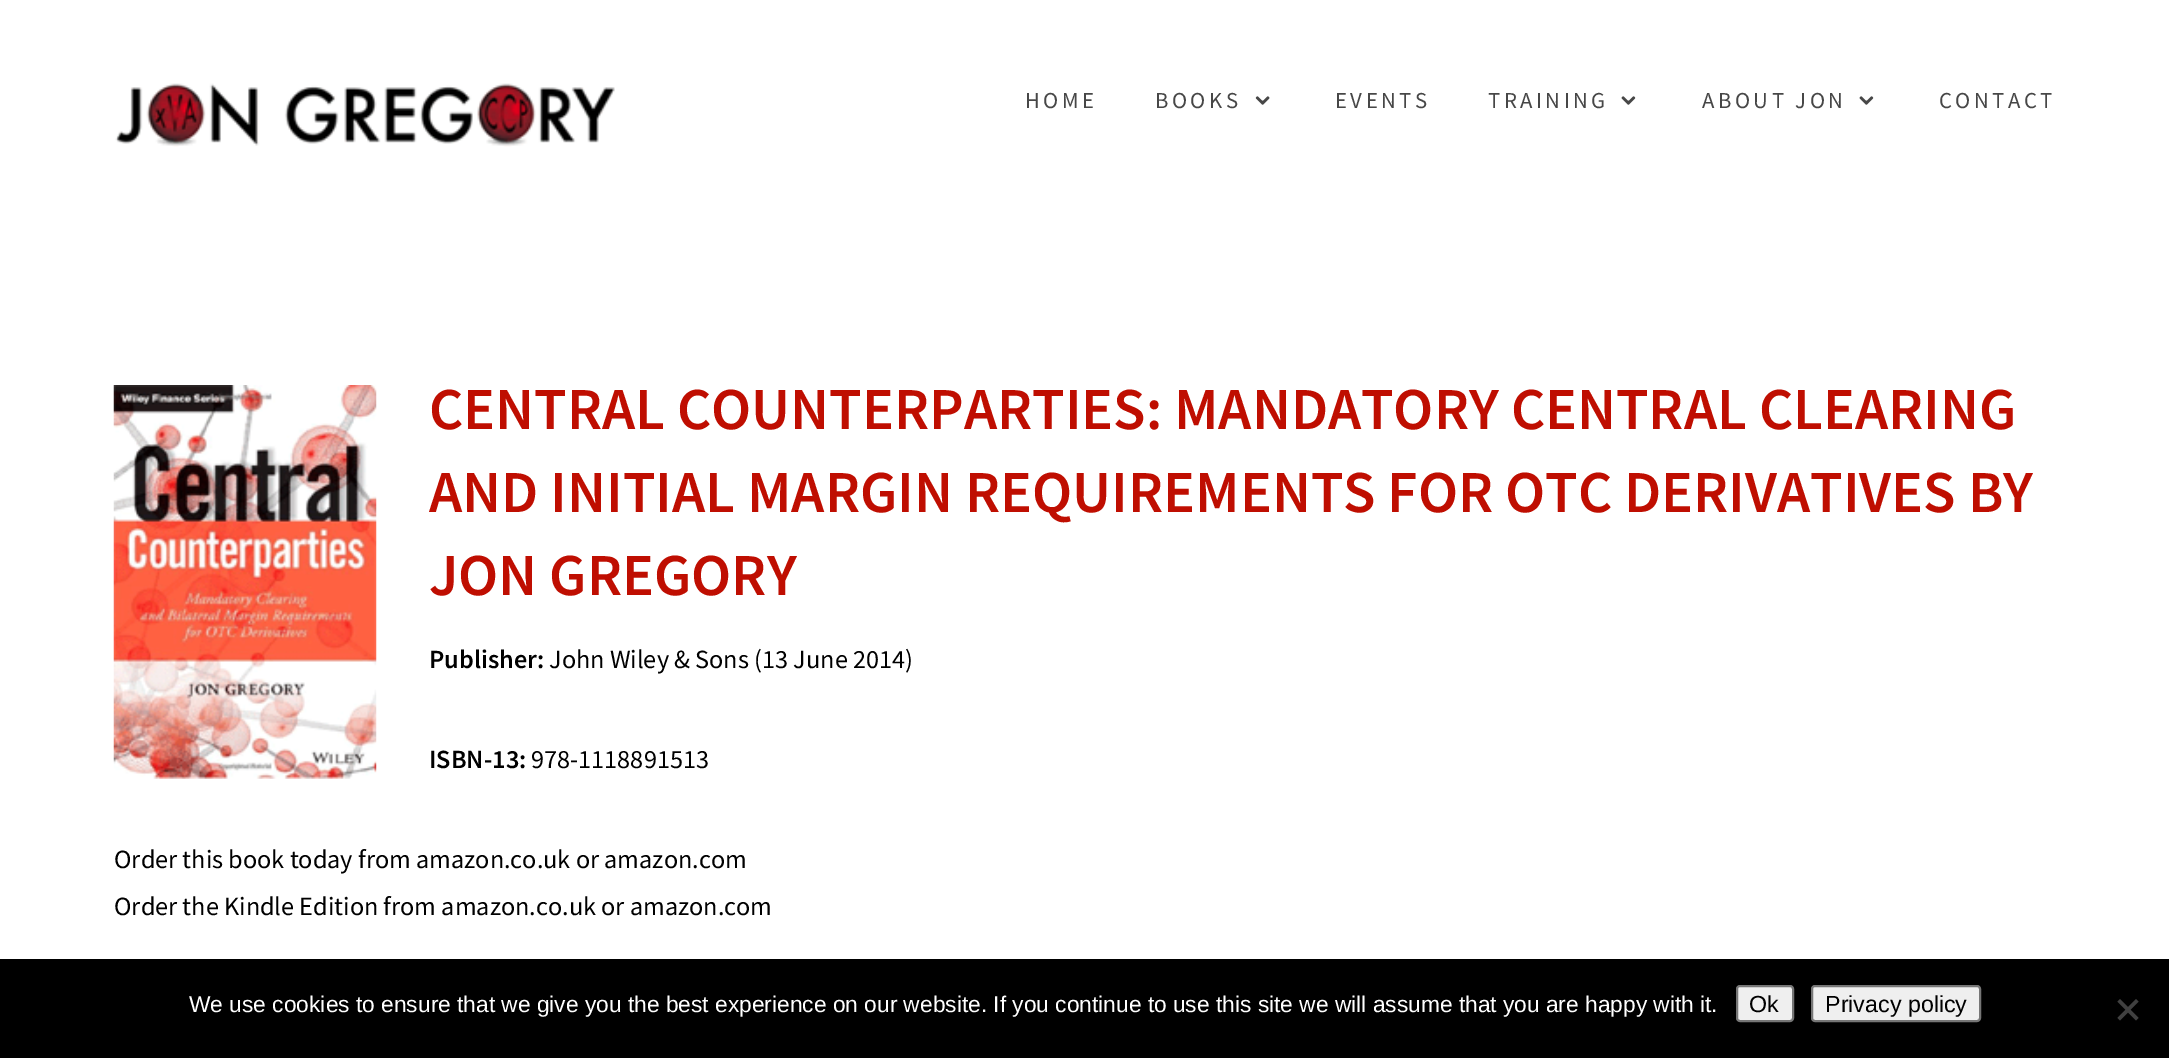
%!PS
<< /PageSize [2169 1058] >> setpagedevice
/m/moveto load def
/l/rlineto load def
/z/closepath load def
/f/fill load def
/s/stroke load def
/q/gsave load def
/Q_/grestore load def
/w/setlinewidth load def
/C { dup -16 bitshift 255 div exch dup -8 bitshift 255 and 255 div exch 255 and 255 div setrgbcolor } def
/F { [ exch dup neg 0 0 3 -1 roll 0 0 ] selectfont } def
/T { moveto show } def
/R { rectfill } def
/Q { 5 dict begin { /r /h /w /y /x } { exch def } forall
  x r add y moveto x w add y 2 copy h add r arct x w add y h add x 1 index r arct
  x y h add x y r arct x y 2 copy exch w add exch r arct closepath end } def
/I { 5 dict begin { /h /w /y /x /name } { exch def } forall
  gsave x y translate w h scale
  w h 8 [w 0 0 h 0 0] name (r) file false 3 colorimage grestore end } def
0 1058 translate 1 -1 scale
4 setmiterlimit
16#FFFFFF C
0 0 2169 1058 R
(1.rgb) 115 83 500 64 I
/SourceSansPro-Regular 22.75 F
16#474747 C
1025 108 m 3.5 0 (HOME) ashow
1155 108 m 3.5 0 (BOOKS) ashow
(2.rgb) 1255 96 15 9 I
1335 108 m 3.5 0 (EVENTS) ashow
1488 108 m 3.5 0 (TRAINING) ashow
(3.rgb) 1621 96 15 9 I
1702 108 m 3.5 0 (ABOUT JON) ashow
(3.rgb) 1859 96 15 9 I
1939 108 m 3.5 0 (CONTACT) ashow
(4.rgb) 113 385 264 394 I
/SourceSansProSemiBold-SemiBold 59.5 F
16#BF0E01 C
(CENTRAL COUNTERPARTIES: MANDATORY CENTRAL CLEARING) 429 429 T
(AND INITIAL MARGIN REQUIREMENTS FOR OTC DERIVATIVES BY) 429 512 T
(JON GREGORY) 429 595 T
/SourceSansProSemiBold-SemiBold 26.25 F
16#000000 C
(Publisher:) 429 668 T
/SourceSansPro-Regular 26.25 F
(John Wiley & Sons \(13 June 2014\)) 549 668 T
/SourceSansProSemiBold-SemiBold 26.25 F
(ISBN-13:) 429 768 T
/SourceSansPro-Regular 26.25 F
(978-1118891513) 531 768 T
(Order this book today from amazon.co.uk or amazon.com) 114 868 T
(Order the Kindle Edition from amazon.co.uk or amazon.com) 114 915 T
0 959 2169 99 R
/LiberationSans-Regular 22.75 F
16#FFFFFF C
(We use cookies to ensure that we give you the best experience on our website. If you continue to use this site we will assume that you are happy with it.) 189 1012 T
16#EFEFEF C
1737 986 56 35 3 Q q f Q_
16#767676 C
2 w
s
/LiberationSans-Regular 23.25 F
16#000000 C
(Ok) 1749 1012 T
16#EFEFEF C
1812 986 168 35 3 Q q f Q_
16#767676 C
s
16#000000 C
(Privacy policy) 1825 1012 T
16#404040 C
2136 999 m 2.5 2.5 l -18.5 19 l -2.5 -2.5 l z f
2117.5 1001.5 m 2.5 -2.5 l 18.5 19 l -2.5 2.5 l z f
showpage
